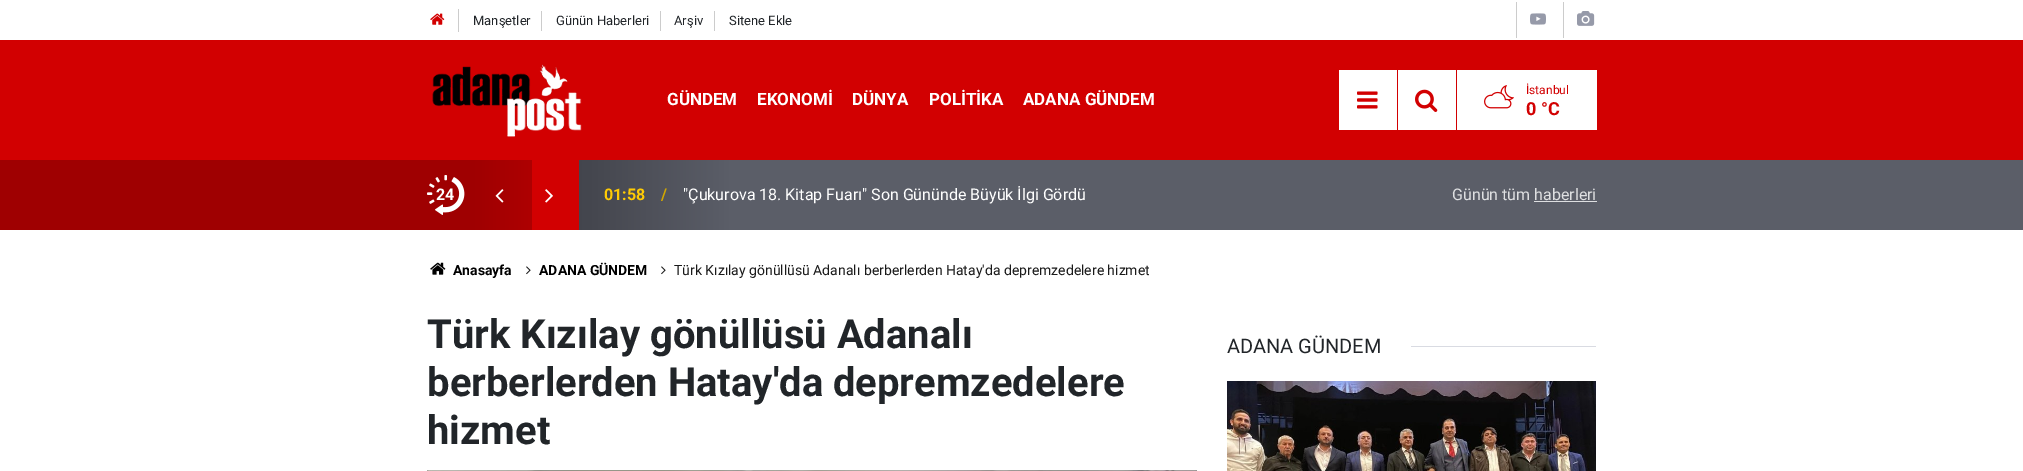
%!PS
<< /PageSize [2023 471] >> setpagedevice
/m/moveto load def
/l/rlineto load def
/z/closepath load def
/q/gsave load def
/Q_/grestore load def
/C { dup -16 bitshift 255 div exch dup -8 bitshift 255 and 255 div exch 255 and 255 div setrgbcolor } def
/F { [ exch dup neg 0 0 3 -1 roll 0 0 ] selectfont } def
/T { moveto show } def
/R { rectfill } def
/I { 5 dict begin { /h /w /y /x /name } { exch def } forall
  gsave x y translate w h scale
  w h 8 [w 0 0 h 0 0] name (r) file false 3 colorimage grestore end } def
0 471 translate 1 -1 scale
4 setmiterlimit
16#FFFFFF C
0 0 2023 471 R
16#D20001 C
0 40 2023 120 R
16#CCCCCC C
458 9 1 23 R
(1.rgb) 430 13 15 12 I
541 11 1 20 R
/Roboto-Regular 13 F
16#212529 C
(Manşetler) 473 25 T
16#CCCCCC C
660 11 1 20 R
16#212529 C
(Günün Haberleri) 556 25 T
16#CCCCCC C
714 11 1 20 R
16#212529 C
(Arşiv) 674 25 T
(Sitene Ekle) 729 25 T
16#CCCCCC C
1516 2 1 36 R
(2.rgb) 1530 13 16 12 I
1563 2 1 36 R
(3.rgb) 1577 11 18 15 I
(4.rgb) 432 64 150 73 I
/Roboto-Bold 17 F
16#FFFFFF C
(GÜNDEM) 667 105 T
(EKONOMİ) 757 105 T
(DÜNYA) 852 105 T
(POLİTİKA) 929 105 T
(ADANA GÜNDEM) 1023 105 T
1339 70 58 60 R
(5.rgb) 1357 91 21 18 I
1398 70 58 60 R
(6.rgb) 1415 89 23 23 I
1457 70 140 60 R
(7.rgb) 1484 85 30 24 I
/Roboto-Regular 12 F
16#D20001 C
(İstanbul) 1526 94 T
/Roboto-Bold 18 F
(0 °C) 1526 115 T
16#9F0001 C
0 160 427 70 R
16#5B5E68 C
1597 160 426 70 R
q 427 160 m 1170 0 l 0 70 l -1170 0 l z clip newpath
<< /ShadingType 2 /ColorSpace /DeviceRGB /Coords [427 195 1597 195] /Extend [true true] /Function << /FunctionType 3 /Domain [0 1] /Functions [<< /FunctionType 2 /Domain [0 1] /C0 [.624 0 .004] /C1 [.624 0 .004] /N 1 >> << /FunctionType 2 /Domain [0 1] /C0 [.624 0 .004] /C1 [.682 0 .004] /N 1 >> << /FunctionType 2 /Domain [0 1] /C0 [.824 0 .004] /C1 [.824 0 .004] /N 1 >> << /FunctionType 2 /Domain [0 1] /C0 [.263 .271 .302] /C1 [.357 .369 .408] /N 1 >> << /FunctionType 2 /Domain [0 1] /C0 [.357 .369 .408] /C1 [.357 .369 .408] /N 1 >>] /Bounds [.04 .09 .13 .26] /Encode [0 1 0 1 0 1 0 1 0 1] >> >> shfill Q_
(8.rgb) 427 175 38 40 I
/Roboto-Bold 16 F
16#FFFFFF C
(24) 436 200 T
(9.rgb) 495 189 9 14 I
(10.rgb) 545 189 8 14 I
16#FFCB05 C
(01:58) 604 200 T
16#D1A600 C
(/) 661 200 T
/Roboto-Regular 16 F
16#FFFFFF C
("Çukurova 18. Kitap Fuarı" Son Gününde Büyük İlgi Gördü) 683 200 T
16#DEDFE1 C
(Günün tüm haberleri) 1452 200 T
1534 201 63 1 R
(11.rgb) 430 262 16 13 I
/Roboto-Bold 14 F
16#000000 C
(Anasayfa) 453 275 T
(12.rgb) 526 266 5 9 I
(ADANA GÜNDEM) 539 275 T
(12.rgb) 661 266 5 9 I
/Roboto-Regular 14 F
16#1A1A1A C
(Türk Kızılay gönüllüsü Adanalı berberlerden Hatay'da depremzedelere hizmet) 674 275 T
/Roboto-Bold 40 F
16#212529 C
(Türk Kızılay gönüllüsü Adanalı) 427 348 T
(berberlerden Hatay'da depremzedelere) 427 396 T
(hizmet) 427 444 T
(13.rgb) 427 470 770 1 I
/Roboto-Regular 20 F
(ADANA GÜNDEM) 1227 353 T
16#D9DBE2 C
1411 346 185 1 R
(14.rgb) 1227 381 369 90 I
showpage
